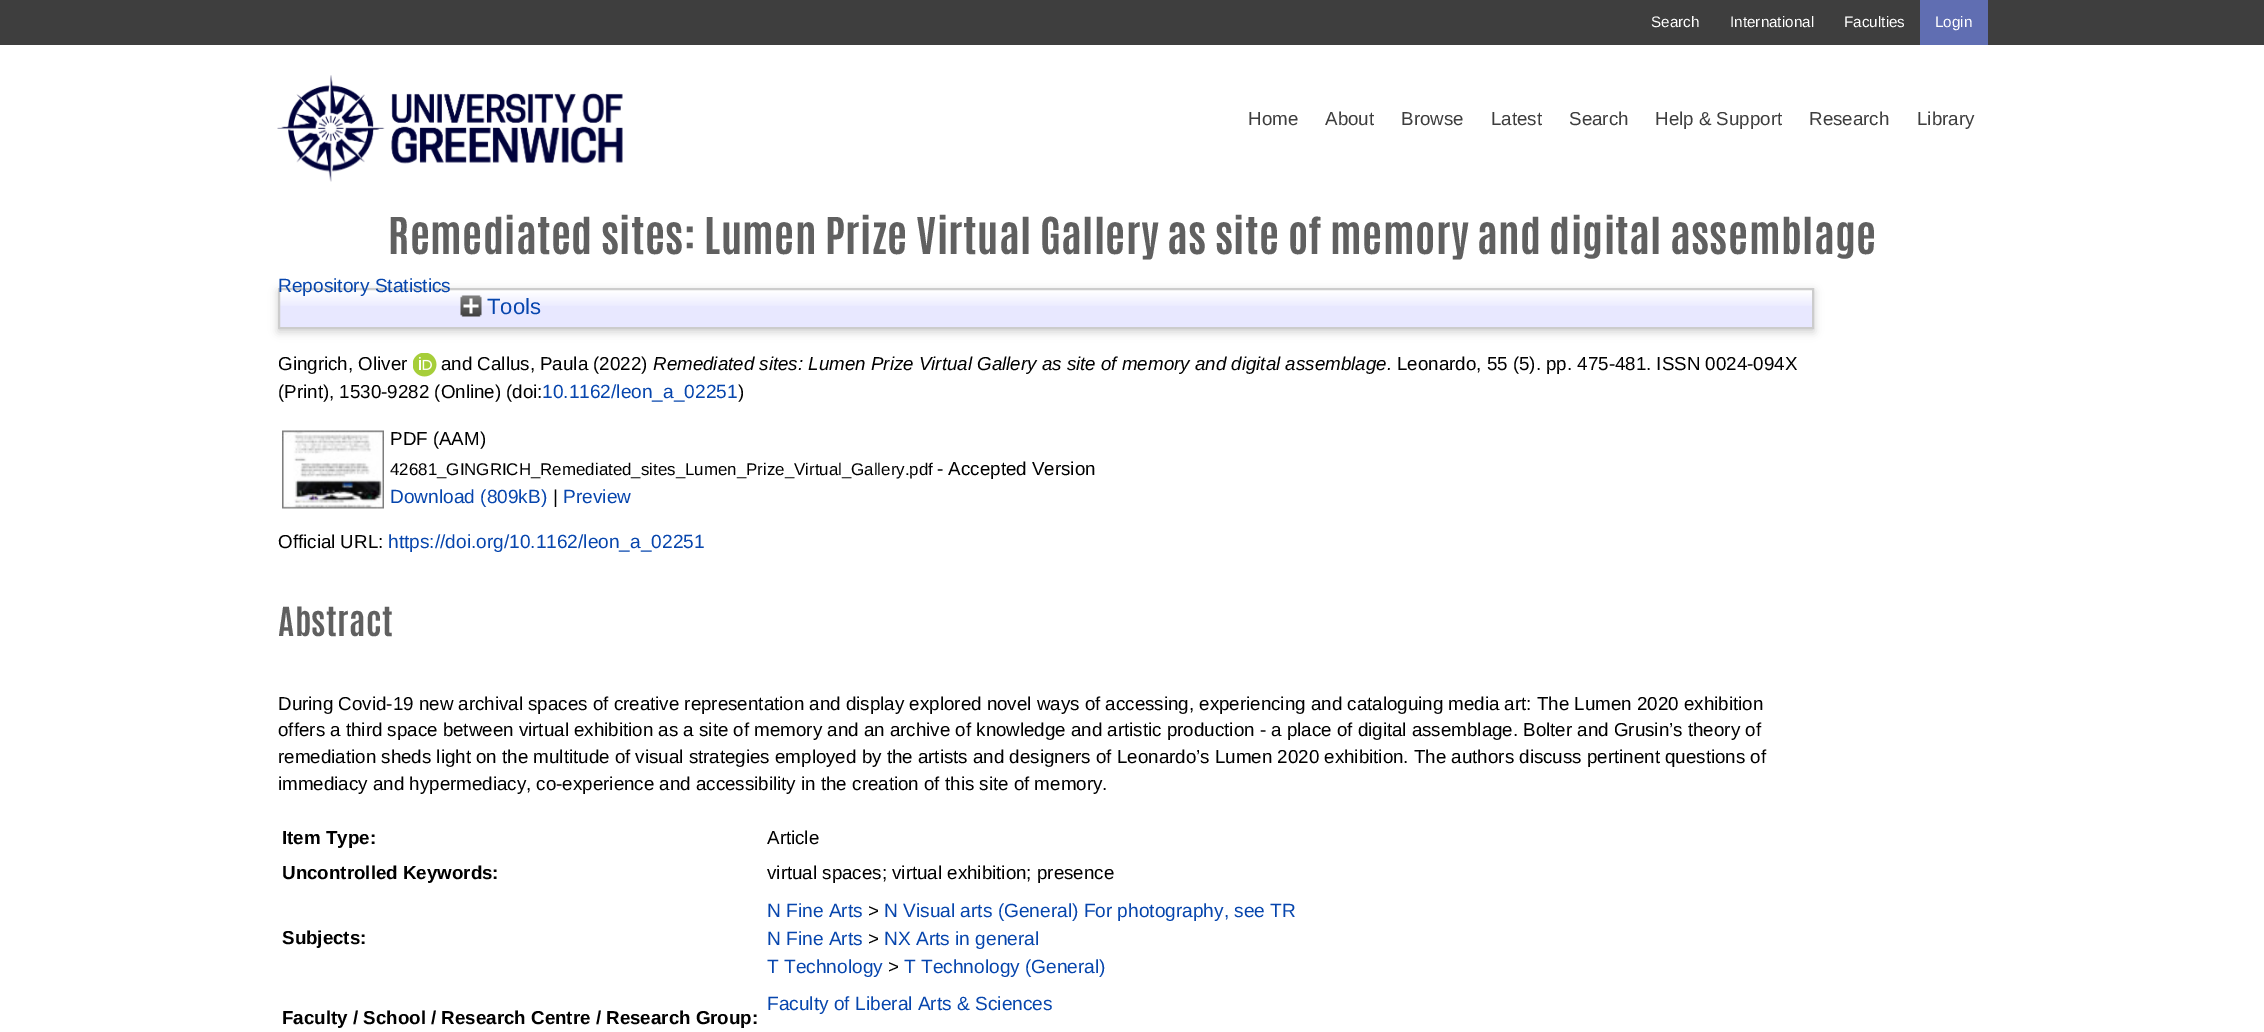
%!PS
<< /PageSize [2264 1032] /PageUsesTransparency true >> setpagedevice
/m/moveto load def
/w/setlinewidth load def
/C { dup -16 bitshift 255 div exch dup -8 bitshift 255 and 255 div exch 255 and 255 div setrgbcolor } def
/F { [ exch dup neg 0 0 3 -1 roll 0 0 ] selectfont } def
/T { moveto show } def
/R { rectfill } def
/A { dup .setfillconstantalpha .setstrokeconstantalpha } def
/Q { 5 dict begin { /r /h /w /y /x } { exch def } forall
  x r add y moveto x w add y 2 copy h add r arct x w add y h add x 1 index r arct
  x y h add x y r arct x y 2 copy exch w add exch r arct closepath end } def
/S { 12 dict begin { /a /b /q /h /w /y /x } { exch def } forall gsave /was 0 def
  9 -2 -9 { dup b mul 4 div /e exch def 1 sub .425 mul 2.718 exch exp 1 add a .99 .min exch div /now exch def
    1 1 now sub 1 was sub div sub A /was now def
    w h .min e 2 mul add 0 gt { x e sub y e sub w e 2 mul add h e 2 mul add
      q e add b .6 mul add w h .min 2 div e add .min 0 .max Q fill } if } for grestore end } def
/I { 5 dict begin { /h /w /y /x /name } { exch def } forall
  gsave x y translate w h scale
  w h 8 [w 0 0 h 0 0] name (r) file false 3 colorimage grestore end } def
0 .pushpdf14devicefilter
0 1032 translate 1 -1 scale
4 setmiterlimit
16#FFFFFF C
0 0 2264 1032 R
16#3E3E3E C
0 0 2264 45 R
/LiberationSans-Regular 15.25 F
16#FFFFFF C
(Search) 1651 27 T
(International) 1730 27 T
(Faculties) 1844 27 T
16#606EB2 C
1920 0 68 45 R
16#FFFFFF C
(Login) 1935 27 T
(1.rgb) 277 75 346 107 I
/LiberationSans-Regular 18.75 F
16#3E3E3E C
(Home) 1248 125 T
(About) 1325 125 T
(Browse) 1401 125 T
(Latest) 1491 125 T
(Search) 1569 125 T
(Help & Support) 1655 125 T
(Research) 1809 125 T
(Library) 1917 125 T
/Antonio-Bold 43.1 F
16#606060 C
388 254 m .38 0 (Remediated sites: Lumen Prize Virtual Gallery as site of memory and digital assemblage) ashow
16#646464 C
278 291 1536 41 0 4.5 .3 S
16#E8E8FF C
280 290 1532 37 R
(2.rgb) 280 290 1532 16 I
16#CCCCCC C
2 w
279 289 1534 39 rectstroke
/LiberationSans-Regular 19.1 F
16#0645AD C
(Repository Statistics) 278 292 T
(3.rgb) 460 295 22 22 I
/LiberationSans-Regular 22 F
(Tools) 487 314 T
/LiberationSans-Regular 18.75 F
16#000000 C
(Gingrich, Oliver) 278 370 T
(4.rgb) 413 353 24 24 I
(and Callus, Paula \(2022\)) 441 370 T
/LiberationSans-Italic 18.75 F
(Remediated sites: Lumen Prize Virtual Gallery as site of memory and digital assemblage.) 653 370 T
/LiberationSans-Regular 18.75 F
(Leonardo, 55 \(5\). pp. 475-481. ISSN 0024-094X) 1397 370 T
(\(Print\), 1530-9282 \(Online\) \(doi:) 278 398 T
/LiberationSans-Regular 19.1 F
16#0645AD C
(10.1162/leon_a_02251) 542 398 T
/LiberationSans-Regular 18.75 F
16#000000 C
(\)) 738 398 T
(5.rgb) 282 430 102 79 I
(PDF \(AAM\)) 390 445 T
/LiberationSans-Regular 16.9 F
(42681_GINGRICH_Remediated_sites_Lumen_Prize_Virtual_Gallery.pdf) 390 475 T
/LiberationSans-Regular 18.75 F
(- Accepted Version) 937 475 T
/LiberationSans-Regular 19.1 F
16#0645AD C
(Download \(809kB\)) 390 503 T
/LiberationSans-Regular 18.75 F
16#000000 C
(|) 553 503 T
/LiberationSans-Regular 19.1 F
16#0645AD C
(Preview) 563 503 T
/LiberationSans-Regular 18.75 F
16#000000 C
(Official URL:) 278 548 T
/LiberationSans-Regular 19.1 F
16#0645AD C
(https://doi.org/10.1162/leon_a_02251) 388 548 T
/Antonio-Bold 34 F
16#606060 C
278 636 m .38 0 (Abstract) ashow
/LiberationSans-Regular 18.75 F
16#000000 C
(During Covid-19 new archival spaces of creative representation and display explored novel ways of accessing, experiencing and cataloguing media art: The Lumen 2020 exhibition) 278 710 T
(offers a third space between virtual exhibition as a site of memory and an archive of knowledge and artistic production - a place of digital assemblage. Bolter and Grusin’s theory of) 278 736 T
(remediation sheds light on the multitude of visual strategies employed by the artists and designers of Leonardo’s Lumen 2020 exhibition. The authors discuss pertinent questions of) 278 763 T
(immediacy and hypermediacy, co-experience and accessibility in the creation of this site of memory.) 278 790 T
/LiberationSans-Bold 18.75 F
(Item Type:) 282 844 T
/LiberationSans-Regular 18.75 F
(Article) 767 844 T
/LiberationSans-Bold 18.75 F
(Uncontrolled Keywords:) 282 879 T
/LiberationSans-Regular 18.75 F
(virtual spaces; virtual exhibition; presence) 767 879 T
/LiberationSans-Bold 18.75 F
(Subjects:) 282 944 T
/LiberationSans-Regular 19.1 F
16#0645AD C
(N Fine Arts) 767 917 T
/LiberationSans-Regular 18.75 F
16#000000 C
(>) 868 917 T
/LiberationSans-Regular 19.1 F
16#0645AD C
(N Visual arts \(General\) For photography, see TR) 884 917 T
(N Fine Arts) 767 945 T
/LiberationSans-Regular 18.75 F
16#000000 C
(>) 868 945 T
/LiberationSans-Regular 19.1 F
16#0645AD C
(NX Arts in general) 884 945 T
(T Technology) 767 973 T
/LiberationSans-Regular 18.75 F
16#000000 C
(>) 888 973 T
/LiberationSans-Regular 19.1 F
16#0645AD C
(T Technology \(General\)) 904 973 T
(Faculty of Liberal Arts & Sciences) 767 1010 T
/LiberationSans-Bold 18.75 F
16#000000 C
(Faculty / School / Research Centre / Research Group:) 282 1024 T
.poppdf14devicefilter showpage
